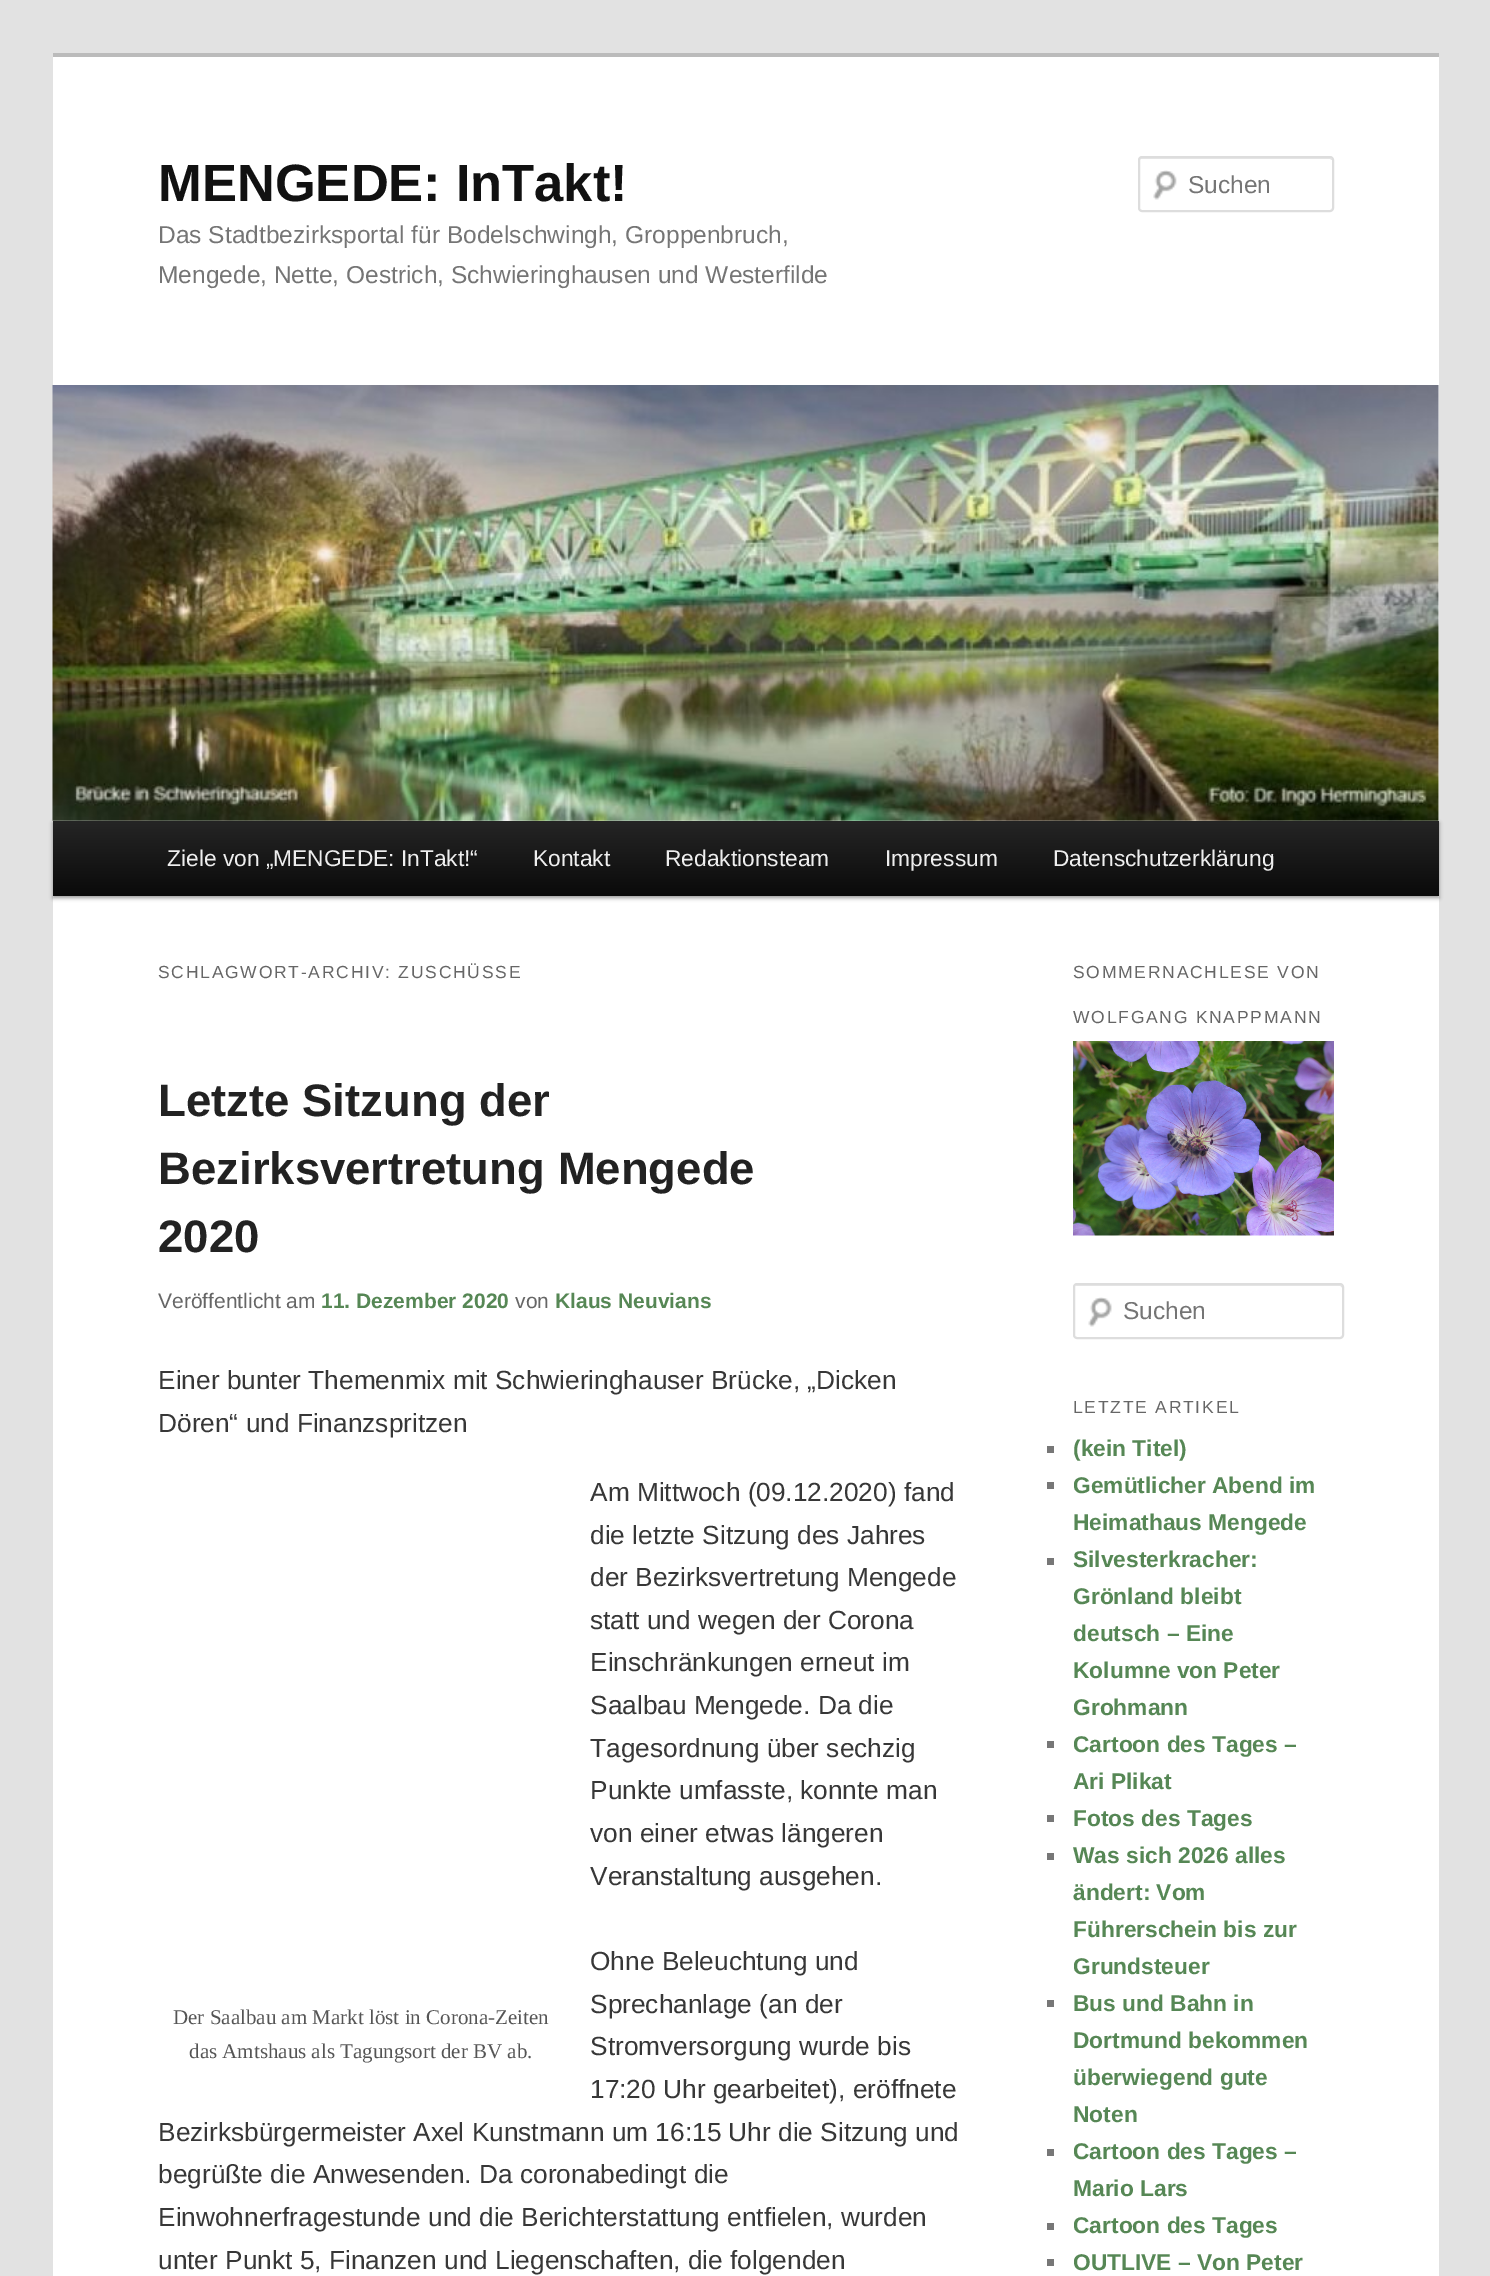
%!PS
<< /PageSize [1490 2276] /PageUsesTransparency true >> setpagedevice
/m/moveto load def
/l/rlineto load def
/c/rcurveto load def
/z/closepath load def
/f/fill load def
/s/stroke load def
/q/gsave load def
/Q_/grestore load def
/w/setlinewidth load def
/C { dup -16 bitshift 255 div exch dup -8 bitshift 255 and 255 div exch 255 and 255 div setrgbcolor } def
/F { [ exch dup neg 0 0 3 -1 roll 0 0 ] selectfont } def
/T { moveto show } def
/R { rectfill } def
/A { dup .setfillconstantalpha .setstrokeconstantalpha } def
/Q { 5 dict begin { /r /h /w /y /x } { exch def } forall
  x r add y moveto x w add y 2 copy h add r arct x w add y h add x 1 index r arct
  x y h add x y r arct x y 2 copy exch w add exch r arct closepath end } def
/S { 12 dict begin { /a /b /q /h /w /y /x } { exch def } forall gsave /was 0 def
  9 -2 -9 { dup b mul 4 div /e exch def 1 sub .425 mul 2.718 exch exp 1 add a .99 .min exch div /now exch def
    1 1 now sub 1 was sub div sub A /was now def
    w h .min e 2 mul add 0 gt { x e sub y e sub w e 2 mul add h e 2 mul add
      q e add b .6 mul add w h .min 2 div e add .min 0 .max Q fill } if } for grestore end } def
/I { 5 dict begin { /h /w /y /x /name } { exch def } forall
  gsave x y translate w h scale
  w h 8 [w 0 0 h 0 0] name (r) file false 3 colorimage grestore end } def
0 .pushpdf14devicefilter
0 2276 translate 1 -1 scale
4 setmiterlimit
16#E2E2E2 C
0 0 1490 2276 R
16#FFFFFF C
53 57 1386 2219 R
16#BBBBBB C
53 53 1386 4 R
/LiberationSans-Bold 52.5 F
16#111111 C
(MENGEDE: InTakt!) 158 201 T
/LiberationSans-Regular 24.5 F
16#757575 C
(Das Stadtbezirksportal für Bodelschwingh, Groppenbruch,) 158 243 T
(Mengede, Nette, Oestrich, Schwieringhausen und Westerfilde) 158 283 T
(1.rgb) 1153 170 24 30 I
16#E6E6E6 C
1141 159 m 189 0 l 2 1 l 0 1 l 0 -1 l 0 -1 -1 -2 -2 -2 c -189 0 l -1 0 -2 1 -2 2 c 0 1 l 0 -1 1 -2 2 -2 c z f
16#DDDDDD C
2 w
1139 157 194 54 3 Q s
16#757575 C
(Suchen) 1188 193 T
16#000000 C
53 823 1386 75 0 2 .4 S
(2.rgb) 52 385 1387 436 I
q 53 821 m 1386 0 l 0 75 l -1386 0 l z clip newpath
<< /ShadingType 2 /ColorSpace /DeviceRGB /Coords [746 821 746 896] /Extend [true true] /Function << /FunctionType 2 /Domain [0 1] /C0 [.145 .145 .145] /C1 [.039 .039 .039] /N 1 >> >> shfill Q_
/LiberationSans-Regular 22.75 F
16#EEEEEE C
(Ziele von „MENGEDE: InTakt!“) 167 866 T
(Kontakt) 533 866 T
(Redaktionsteam) 665 866 T
(Impressum) 885 866 T
(Datenschutzerklärung) 1053 866 T
/LiberationSans-Regular 17.5 F
16#666666 C
158 978 m 1.75 0 (SCHLAGWORT-ARCHIV: ZUSCHÜSSE) ashow
/LiberationSans-Bold 45.5 F
16#222222 C
(Letzte Sitzung der) 158 1116 T
(Bezirksvertretung Mengede) 158 1184 T
(2020) 158 1252 T
/LiberationSans-Regular 21 F
16#666666 C
(Veröffentlicht am) 158 1308 T
/LiberationSans-Bold 21 F
16#568755 C
(11. Dezember 2020) 321 1308 T
/LiberationSans-Regular 21 F
16#666666 C
(von) 515 1308 T
/LiberationSans-Bold 21 F
16#568755 C
(Klaus Neuvians) 555 1308 T
/LiberationSans-Regular 26.25 F
16#373737 C
(Einer bunter Themenmix mit Schwieringhauser Brücke, „Dicken) 158 1389 T
(Dören“ und Finanzspritzen) 158 1432 T
(Am Mittwoch \(09.12.2020\) fand) 590 1501 T
(die letzte Sitzung des Jahres) 590 1544 T
(der Bezirksvertretung Mengede) 590 1586 T
(statt und wegen der Corona) 590 1629 T
(Einschränkungen erneut im) 590 1671 T
(Saalbau Mengede. Da die) 590 1714 T
(Tagesordnung über sechzig) 590 1757 T
(Punkte umfasste, konnte man) 590 1799 T
(von einer etwas längeren) 590 1842 T
(Veranstaltung ausgehen.) 590 1885 T
(Ohne Beleuchtung und) 590 1970 T
(Sprechanlage \(an der) 590 2013 T
(Stromversorgung wurde bis) 590 2055 T
(17:20 Uhr gearbeitet\), eröffnete) 590 2098 T
(Bezirksbürgermeister Axel Kunstmann um 16:15 Uhr die Sitzung und) 158 2141 T
(begrüßte die Anwesenden. Da coronabedingt die) 158 2183 T
(Einwohnerfragestunde und die Berichterstattung entfielen, wurden) 158 2226 T
(unter Punkt 5, Finanzen und Liegenschaften, die folgenden) 158 2269 T
/LiberationSerif-Regular 21 F
16#555555 C
(Der Saalbau am Markt löst in Corona-Zeiten) 173 2024 T
(das Amtshaus als Tagungsort der BV ab.) 189 2058 T
/LiberationSans-Regular 17.5 F
16#666666 C
1073 978 m 1.75 0 (SOMMERNACHLESE VON) ashow
1073 1023 m 1.75 0 (WOLFGANG KNAPPMANN) ashow
(3.rgb) 1073 1041 261 195 I
(4.rgb) 1088 1297 24 30 I
16#E6E6E6 C
1076 1286 m 264 0 l 1 0 2 1 2 2 c 0 -1 0 -3 -2 -3 c -263 0 l -2 1 l z f
16#DDDDDD C
1074 1284 269 54 3 Q s
/LiberationSans-Regular 24.5 F
16#757575 C
(Suchen) 1123 1319 T
/LiberationSans-Regular 17.5 F
16#666666 C
1073 1413 m 1.75 0 (LETZTE ARTIKEL) ashow
16#777777 C
1047 1446 7 7 R
/LiberationSans-Bold 22.75 F
16#568755 C
(\(kein Titel\)) 1073 1456 T
16#777777 C
1047 1482 7 7 R
16#568755 C
(Gemütlicher Abend im) 1073 1493 T
(Heimathaus Mengede) 1073 1530 T
16#777777 C
1047 1558 7 7 R
16#568755 C
(Silvesterkracher:) 1073 1567 T
(Grönland bleibt) 1073 1604 T
(deutsch – Eine) 1073 1641 T
(Kolumne von Peter) 1073 1678 T
(Grohmann) 1073 1715 T
16#777777 C
1047 1741 7 7 R
16#568755 C
(Cartoon des Tages –) 1073 1752 T
(Ari Plikat) 1073 1789 T
16#777777 C
1047 1815 7 7 R
16#568755 C
(Fotos des Tages) 1073 1826 T
16#777777 C
1047 1853 7 7 R
16#568755 C
(Was sich 2026 alles) 1073 1863 T
(ändert: Vom) 1073 1900 T
(Führerschein bis zur) 1073 1937 T
(Grundsteuer) 1073 1974 T
16#777777 C
1047 2000 7 7 R
16#568755 C
(Bus und Bahn in) 1073 2011 T
(Dortmund bekommen) 1073 2048 T
(überwiegend gute) 1073 2085 T
(Noten) 1073 2122 T
16#777777 C
1047 2149 7 7 R
16#568755 C
(Cartoon des Tages –) 1073 2159 T
(Mario Lars) 1073 2196 T
16#777777 C
1047 2223 7 7 R
16#568755 C
(Cartoon des Tages) 1073 2233 T
16#777777 C
1047 2259 7 7 R
16#568755 C
(OUTLIVE – Von Peter) 1073 2270 T
.poppdf14devicefilter showpage
